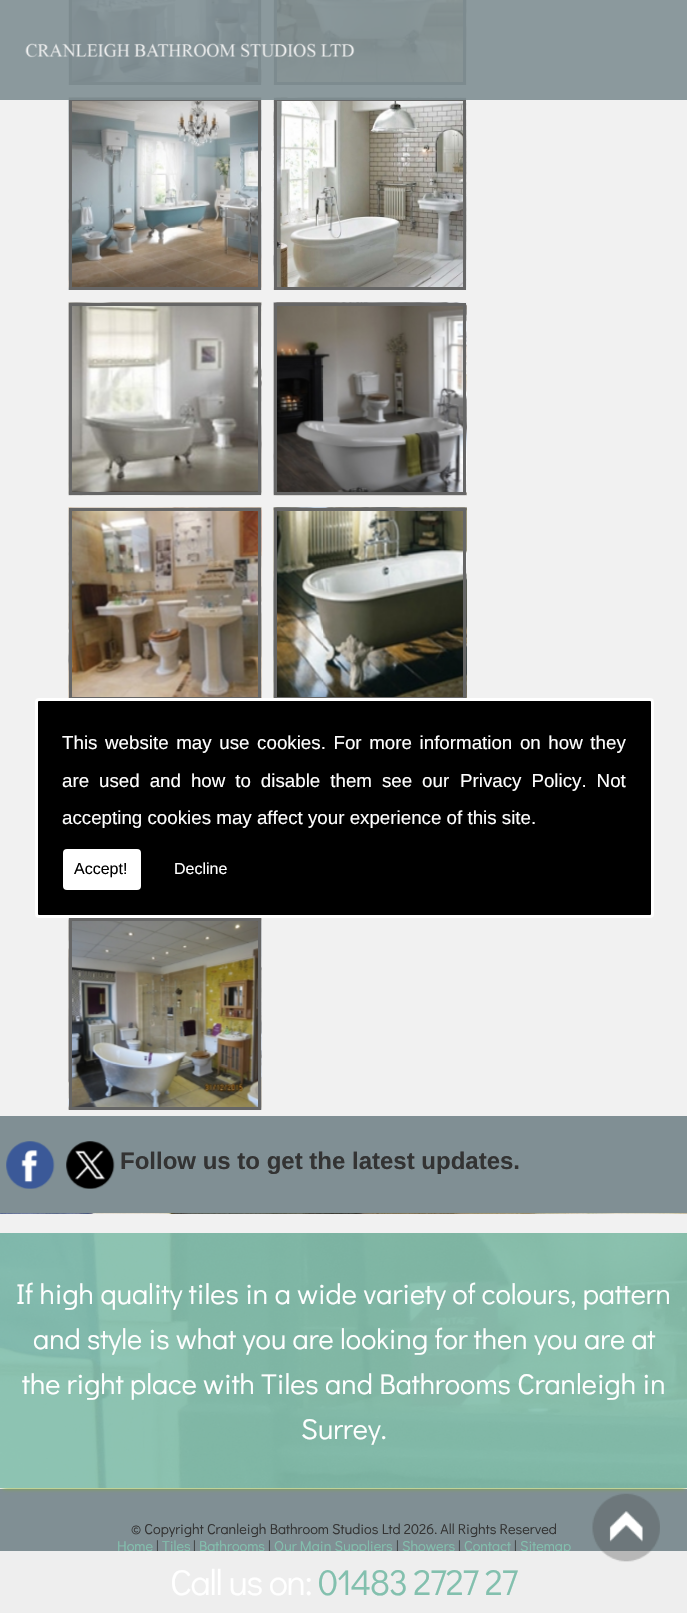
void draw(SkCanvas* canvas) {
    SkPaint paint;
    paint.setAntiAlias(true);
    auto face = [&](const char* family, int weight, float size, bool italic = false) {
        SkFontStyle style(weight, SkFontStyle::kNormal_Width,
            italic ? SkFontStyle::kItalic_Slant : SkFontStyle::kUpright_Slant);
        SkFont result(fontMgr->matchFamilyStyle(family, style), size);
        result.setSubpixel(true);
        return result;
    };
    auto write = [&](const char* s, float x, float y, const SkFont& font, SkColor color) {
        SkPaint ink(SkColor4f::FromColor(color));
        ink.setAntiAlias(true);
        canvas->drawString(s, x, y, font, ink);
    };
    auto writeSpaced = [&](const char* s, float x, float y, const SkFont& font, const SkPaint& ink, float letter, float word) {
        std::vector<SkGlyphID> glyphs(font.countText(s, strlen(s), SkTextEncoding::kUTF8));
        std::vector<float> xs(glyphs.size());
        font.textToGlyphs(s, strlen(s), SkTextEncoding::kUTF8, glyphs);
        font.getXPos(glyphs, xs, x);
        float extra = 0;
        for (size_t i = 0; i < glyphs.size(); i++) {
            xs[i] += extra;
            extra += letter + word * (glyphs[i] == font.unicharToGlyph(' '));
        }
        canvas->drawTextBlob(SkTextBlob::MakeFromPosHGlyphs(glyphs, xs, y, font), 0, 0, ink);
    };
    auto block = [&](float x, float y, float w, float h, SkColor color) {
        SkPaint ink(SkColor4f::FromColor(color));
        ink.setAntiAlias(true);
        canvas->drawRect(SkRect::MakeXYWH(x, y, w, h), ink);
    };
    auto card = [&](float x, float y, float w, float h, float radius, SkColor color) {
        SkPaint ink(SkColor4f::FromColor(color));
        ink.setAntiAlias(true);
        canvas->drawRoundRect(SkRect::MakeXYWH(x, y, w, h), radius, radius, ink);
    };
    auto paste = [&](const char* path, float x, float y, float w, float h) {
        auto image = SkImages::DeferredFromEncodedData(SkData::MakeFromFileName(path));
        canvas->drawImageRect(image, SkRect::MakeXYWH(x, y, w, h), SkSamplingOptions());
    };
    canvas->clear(SkColorSetRGB(128, 143, 148));
    block(0, 0, 687, 1116, SkColorSetRGB(241, 241, 241));
    paste("pic11.png", 68, 507, 194, 191);
    paint.setStyle(SkPaint::kStroke_Style);
    paint.setStrokeWidth(3);
    paint.setColor(SkColorSetRGB(102, 102, 102));
    canvas->drawRect(SkRect::MakeXYWH(70.5f, 509.5f, 189, 189), paint);
    paste("pic12.png", 273, 507, 194, 191);
    canvas->drawRect(SkRect::MakeXYWH(275.5f, 509.5f, 189, 189), paint);
    paint.setStyle(SkPaint::kFill_Style);
    paint.setColor(SK_ColorBLACK);
    canvas->drawRoundRect(SkRect::MakeXYWH(36.5f, 699.5f, 616, 217), 2.5f, 2.5f, paint);
    paint.setStyle(SkPaint::kStroke_Style);
    paint.setColor(SK_ColorWHITE);
    canvas->drawRoundRect(SkRect::MakeXYWH(36.5f, 699.5f, 616, 217), 2.5f, 2.5f, paint);
    auto kFont1 = face("Liberation Sans", 400, 18.75f);
    paint.setStyle(SkPaint::kFill_Style);
    writeSpaced("This website may use cookies. For more information on how they", 62, 749, kFont1, paint, 0, 2.4f);
    writeSpaced("are used and how to disable them see our", 62, 787, kFont1, paint, 0, 4.75f);
    writeSpaced("Privacy Policy. Not", 460, 787, kFont1, paint, 0, 4.75f);
    write("accepting cookies may affect your experience of this site.", 62, 824, kFont1, SK_ColorWHITE);
    card(63, 849, 78, 41, 4, SK_ColorWHITE);
    auto kFont2 = face("Liberation Sans", 400, 16);
    write("Accept!", 74, 874, kFont2, SK_ColorBLACK);
    write("Decline", 174, 874, kFont2, SK_ColorWHITE);
    paste("pic1.png", 6, 1141, 49, 48);
    paste("pic2.png", 66, 1141, 49, 48);
    auto kFont3 = face("Liberation Sans", 700, 24);
    write("Follow us to get the latest updates.", 120, 1169, kFont3, SkColorSetRGB(51, 51, 51));
    block(0, 1488, 687, 1, SkColorSetRGB(238, 238, 238));
    paint.setColor(SkColorSetRGB(132, 174, 36));
    paint.setMaskFilter(SkMaskFilter::MakeBlur(kNormal_SkBlurStyle, 2.5f));
    canvas->drawRect(SkRect::MakeXYWH(3, 1219, 682, 269), paint);
    paint.setMaskFilter(nullptr);
    paste("pic3.png", 0, 1213, 687, 275);
    block(0, 1214, 687, 19, SkColorSetRGB(241, 241, 241));
    auto kFont4 = face("Didact Gothic", 400, 28.75f);
    write("If high quality tiles in a wide variety of colours, pattern", 16, 1304, kFont4, SK_ColorWHITE);
    write("and style is what you are looking for then you are at", 33, 1349, kFont4, SK_ColorWHITE);
    write("the right place with Tiles and Bathrooms Cranleigh in", 22, 1394, kFont4, SK_ColorWHITE);
    write("Surrey.", 301, 1439, kFont4, SK_ColorWHITE);
    auto kFont5 = face("Didact Gothic", 400, 14.4f);
    write("© Copyright Cranleigh Bathroom Studios Ltd 2026. All Rights Reserved", 131, 1534, kFont5, SkColorSetRGB(51, 51, 51));
    write("Home", 117, 1551, kFont5, SkColorSetRGB(131, 192, 174));
    write("|", 156, 1551, kFont5, SkColorSetRGB(51, 51, 51));
    write("Tiles", 162, 1551, kFont5, SkColorSetRGB(131, 192, 174));
    write("|", 193, 1551, kFont5, SkColorSetRGB(51, 51, 51));
    write("Bathrooms", 199, 1551, kFont5, SkColorSetRGB(131, 192, 174));
    write("|", 268, 1551, kFont5, SkColorSetRGB(51, 51, 51));
    write("Our Main Suppliers", 274, 1551, kFont5, SkColorSetRGB(131, 192, 174));
    write("|", 396, 1551, kFont5, SkColorSetRGB(51, 51, 51));
    write("Showers", 402, 1551, kFont5, SkColorSetRGB(131, 192, 174));
    write("|", 458, 1551, kFont5, SkColorSetRGB(51, 51, 51));
    write("Contact", 464, 1551, kFont5, SkColorSetRGB(131, 192, 174));
    write("|", 514, 1551, kFont5, SkColorSetRGB(51, 51, 51));
    write("Sitemap", 520, 1551, kFont5, SkColorSetRGB(131, 192, 174));
    block(0, 1551, 687, 62, SkColorSetRGB(238, 238, 238));
    paste("pic4.png", 592, 1493, 68, 69);
    paste("pic5.png", 68, 0, 194, 85);
    paint.setStyle(SkPaint::kStroke_Style);
    paint.setColor(SkColorSetRGB(102, 102, 102));
    canvas->drawRect(SkRect::MakeXYWH(70.5f, -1.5f, 189, 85), paint);
    paste("pic6.png", 273, 0, 194, 85);
    canvas->drawRect(SkRect::MakeXYWH(275.5f, -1.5f, 189, 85), paint);
    paste("pic7.png", 68, 97, 194, 193);
    canvas->drawRect(SkRect::MakeXYWH(70.5f, 99.5f, 189, 189), paint);
    paste("pic8.png", 273, 97, 194, 193);
    canvas->drawRect(SkRect::MakeXYWH(275.5f, 99.5f, 189, 189), paint);
    paste("pic9.png", 68, 302, 194, 194);
    canvas->drawRect(SkRect::MakeXYWH(70.5f, 304.5f, 189, 189), paint);
    paste("pic10.png", 273, 302, 194, 194);
    canvas->drawRect(SkRect::MakeXYWH(275.5f, 304.5f, 189, 189), paint);
    paste("pic13.png", 68, 918, 194, 192);
    canvas->drawRect(SkRect::MakeXYWH(70.5f, 919.5f, 189, 189), paint);
    block(0, 0, 687, 100, SkColorSetARGB(230, 128, 143, 148));
    paste("pic14.png", 25, 43, 330, 15);
    auto kFont6 = face("Didact Gothic", 400, 36);
    paint.setStyle(SkPaint::kFill_Style);
    paint.setColor(SK_ColorWHITE);
    writeSpaced("Call us on:", 170, 1595, kFont6, paint, -1.25f, 0);
    paint.setColor(SkColorSetRGB(131, 192, 174));
    writeSpaced("01483 2727 27", 318, 1595, kFont6, paint, -1.25f, 0);
}
